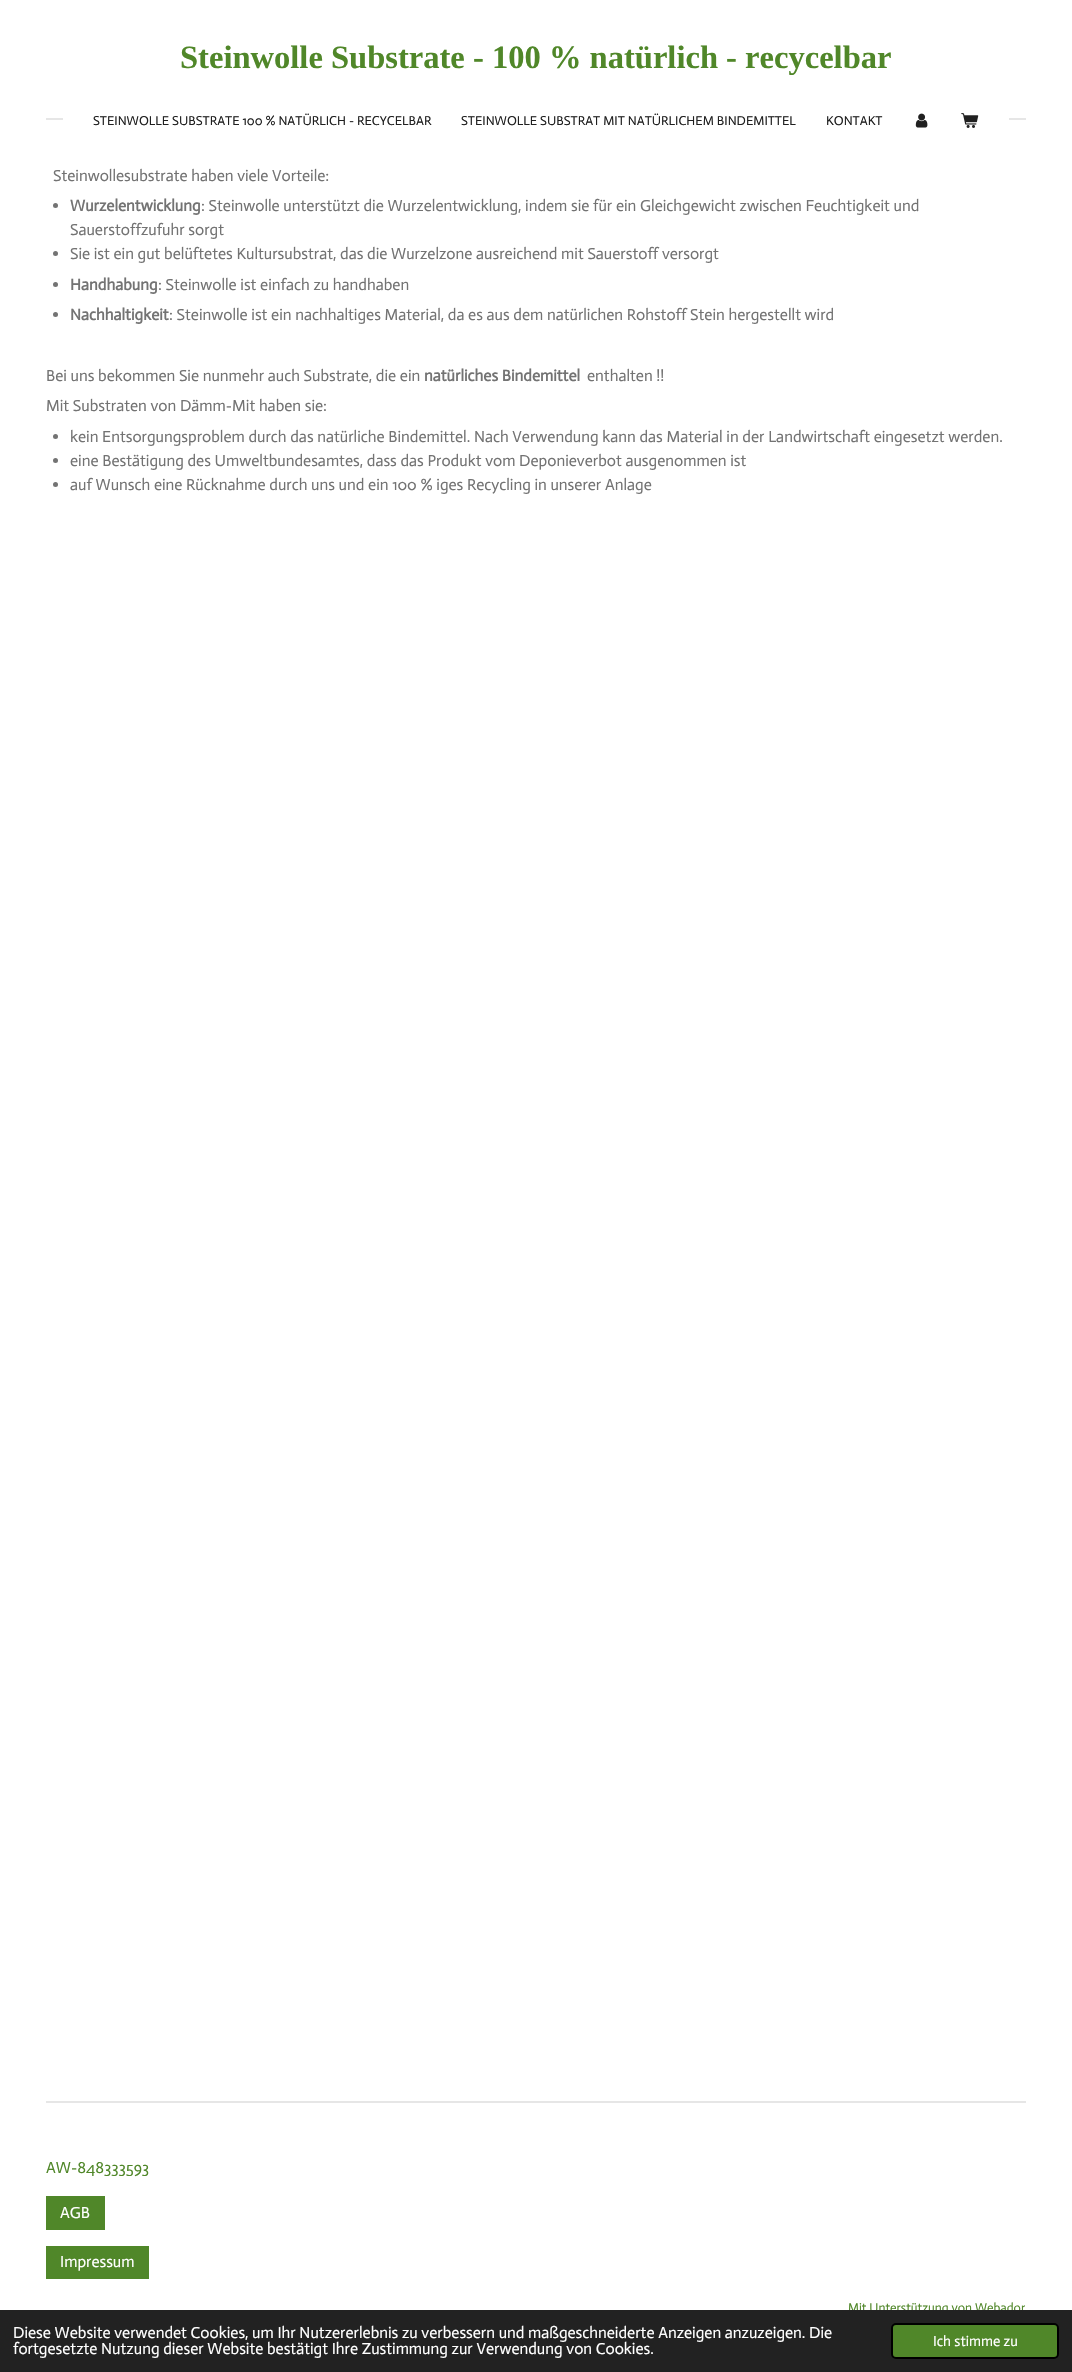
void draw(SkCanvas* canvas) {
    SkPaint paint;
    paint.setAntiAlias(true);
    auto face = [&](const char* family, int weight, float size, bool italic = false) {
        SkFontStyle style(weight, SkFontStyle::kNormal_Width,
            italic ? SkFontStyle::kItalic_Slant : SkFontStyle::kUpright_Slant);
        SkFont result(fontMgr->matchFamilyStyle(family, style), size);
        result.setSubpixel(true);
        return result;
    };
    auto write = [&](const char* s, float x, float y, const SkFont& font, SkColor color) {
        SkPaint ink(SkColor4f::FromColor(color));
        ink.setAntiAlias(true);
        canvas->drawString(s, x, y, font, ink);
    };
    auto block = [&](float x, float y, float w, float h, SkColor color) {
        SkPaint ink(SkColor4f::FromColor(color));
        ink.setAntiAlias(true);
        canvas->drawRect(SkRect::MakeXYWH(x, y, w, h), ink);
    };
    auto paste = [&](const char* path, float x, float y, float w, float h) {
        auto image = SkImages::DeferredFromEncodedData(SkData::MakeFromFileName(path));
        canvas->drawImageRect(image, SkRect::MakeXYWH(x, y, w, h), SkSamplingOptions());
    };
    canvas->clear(SK_ColorWHITE);
    auto kFont1 = face("Liberation Serif", 700, 32.55f);
    write("Steinwolle Substrate - 100 % natürlich - recycelbar", 180, 68, kFont1, SkColorSetRGB(80, 135, 41));
    block(46, 118, 17, 2, SkColorSetRGB(230, 230, 230));
    auto kFont2 = face("Actor", 400, 13);
    write("STEINWOLLE SUBSTRATE 100 % NATÜRLICH - RECYCELBAR", 93, 125, kFont2, SkColorSetRGB(32, 32, 32));
    write("STEINWOLLE SUBSTRAT MIT NATÜRLICHEM BINDEMITTEL", 461, 125, kFont2, SkColorSetRGB(32, 32, 32));
    write("KONTAKT", 826, 125, kFont2, SkColorSetRGB(32, 32, 32));
    paste("pic1.png", 915, 113, 13, 15);
    paste("pic2.png", 961, 113, 18, 15);
    block(1009, 118, 17, 2, SkColorSetRGB(230, 230, 230));
    auto kFont3 = face("Actor", 400, 16);
    write("Steinwollesubstrate haben viele Vorteile:", 53, 181, kFont3, SkColorSetRGB(115, 115, 115));
    paint.setColor(SkColorSetRGB(115, 115, 115));
    canvas->drawCircle(55.5f, 205.5f, 2.5f, paint);
    auto kFont4 = face("Actor", 700, 16);
    write("Wurzelentwicklung", 70, 211, kFont4, SkColorSetRGB(115, 115, 115));
    write(": Steinwolle unterstützt die Wurzelentwicklung, indem sie für ein Gleichgewicht zwischen Feuchtigkeit und", 201, 211, kFont3, SkColorSetRGB(115, 115, 115));
    write("Sauerstoffzufuhr sorgt", 70, 235, kFont3, SkColorSetRGB(115, 115, 115));
    canvas->drawCircle(55.5f, 253.5f, 2.5f, paint);
    write("Sie ist ein gut belüftetes Kultursubstrat, das die Wurzelzone ausreichend mit Sauerstoff versorgt", 70, 259, kFont3, SkColorSetRGB(115, 115, 115));
    canvas->drawCircle(55.5f, 284.5f, 2.5f, paint);
    write("Handhabung", 70, 290, kFont4, SkColorSetRGB(115, 115, 115));
    write(": Steinwolle ist einfach zu handhaben", 158, 290, kFont3, SkColorSetRGB(115, 115, 115));
    canvas->drawCircle(55.5f, 314.5f, 2.5f, paint);
    write("Nachhaltigkeit", 70, 320, kFont4, SkColorSetRGB(115, 115, 115));
    write(": Steinwolle ist ein nachhaltiges Material, da es aus dem natürlichen Rohstoff Stein hergestellt wird", 169, 320, kFont3, SkColorSetRGB(115, 115, 115));
    write("Bei uns bekommen Sie nunmehr auch Substrate, die ein", 46, 381, kFont3, SkColorSetRGB(115, 115, 115));
    write("natürliches Bindemittel", 424, 381, kFont4, SkColorSetRGB(115, 115, 115));
    write("enthalten !!", 587, 381, kFont3, SkColorSetRGB(115, 115, 115));
    write("Mit Substraten von Dämm-Mit haben sie:", 46, 411, kFont3, SkColorSetRGB(115, 115, 115));
    canvas->drawCircle(55.5f, 436.5f, 2.5f, paint);
    write("kein Entsorgungsproblem durch das natürliche Bindemittel. Nach Verwendung kann das Material in der Landwirtschaft eingesetzt werden.", 70, 442, kFont3, SkColorSetRGB(115, 115, 115));
    canvas->drawCircle(55.5f, 460.5f, 2.5f, paint);
    write("eine Bestätigung des Umweltbundesamtes, dass das Produkt vom Deponieverbot ausgenommen ist", 70, 466, kFont3, SkColorSetRGB(115, 115, 115));
    canvas->drawCircle(55.5f, 484.5f, 2.5f, paint);
    write("auf Wunsch eine Rücknahme durch uns und ein 100 % iges Recycling in unserer Anlage", 70, 490, kFont3, SkColorSetRGB(115, 115, 115));
    block(46, 2101, 980, 2, SkColorSetRGB(230, 230, 230));
    write("AW-848333593", 46, 2173, kFont3, SkColorSetRGB(80, 135, 41));
    block(46, 2196, 59, 34, SkColorSetRGB(80, 135, 41));
    write("AGB", 60, 2218, kFont3, SK_ColorWHITE);
    block(46, 2246, 103, 33, SkColorSetRGB(80, 135, 41));
    write("Impressum", 60, 2267, kFont3, SK_ColorWHITE);
    auto kFont5 = face("Actor", 400, 12.75f);
    write("Mit Unterstützung von Webador", 848, 2312, kFont5, SkColorSetRGB(80, 135, 41));
    block(0, 2310, 1072, 62, SkColorSetRGB(34, 34, 34));
    write("Diese Website verwendet Cookies, um Ihr Nutzererlebnis zu verbessern und maßgeschneiderte Anzeigen anzuzeigen. Die", 13, 2338, kFont3, SK_ColorWHITE);
    write("fortgesetzte Nutzung dieser Website bestätigt Ihre Zustimmung zur Verwendung von Cookies.", 13, 2354, kFont3, SK_ColorWHITE);
    paint.setColor(SkColorSetRGB(80, 135, 41));
    canvas->drawRoundRect(SkRect::MakeXYWH(892, 2324, 166, 34), 4, 4, paint);
    paint.setStyle(SkPaint::kStroke_Style);
    paint.setStrokeWidth(2);
    paint.setColor(SK_ColorBLACK);
    canvas->drawRoundRect(SkRect::MakeXYWH(892, 2324, 166, 34), 4, 4, paint);
    auto kFont6 = face("Actor", 400, 14.5f);
    write("Ich stimme zu", 933, 2346, kFont6, SK_ColorWHITE);
}
